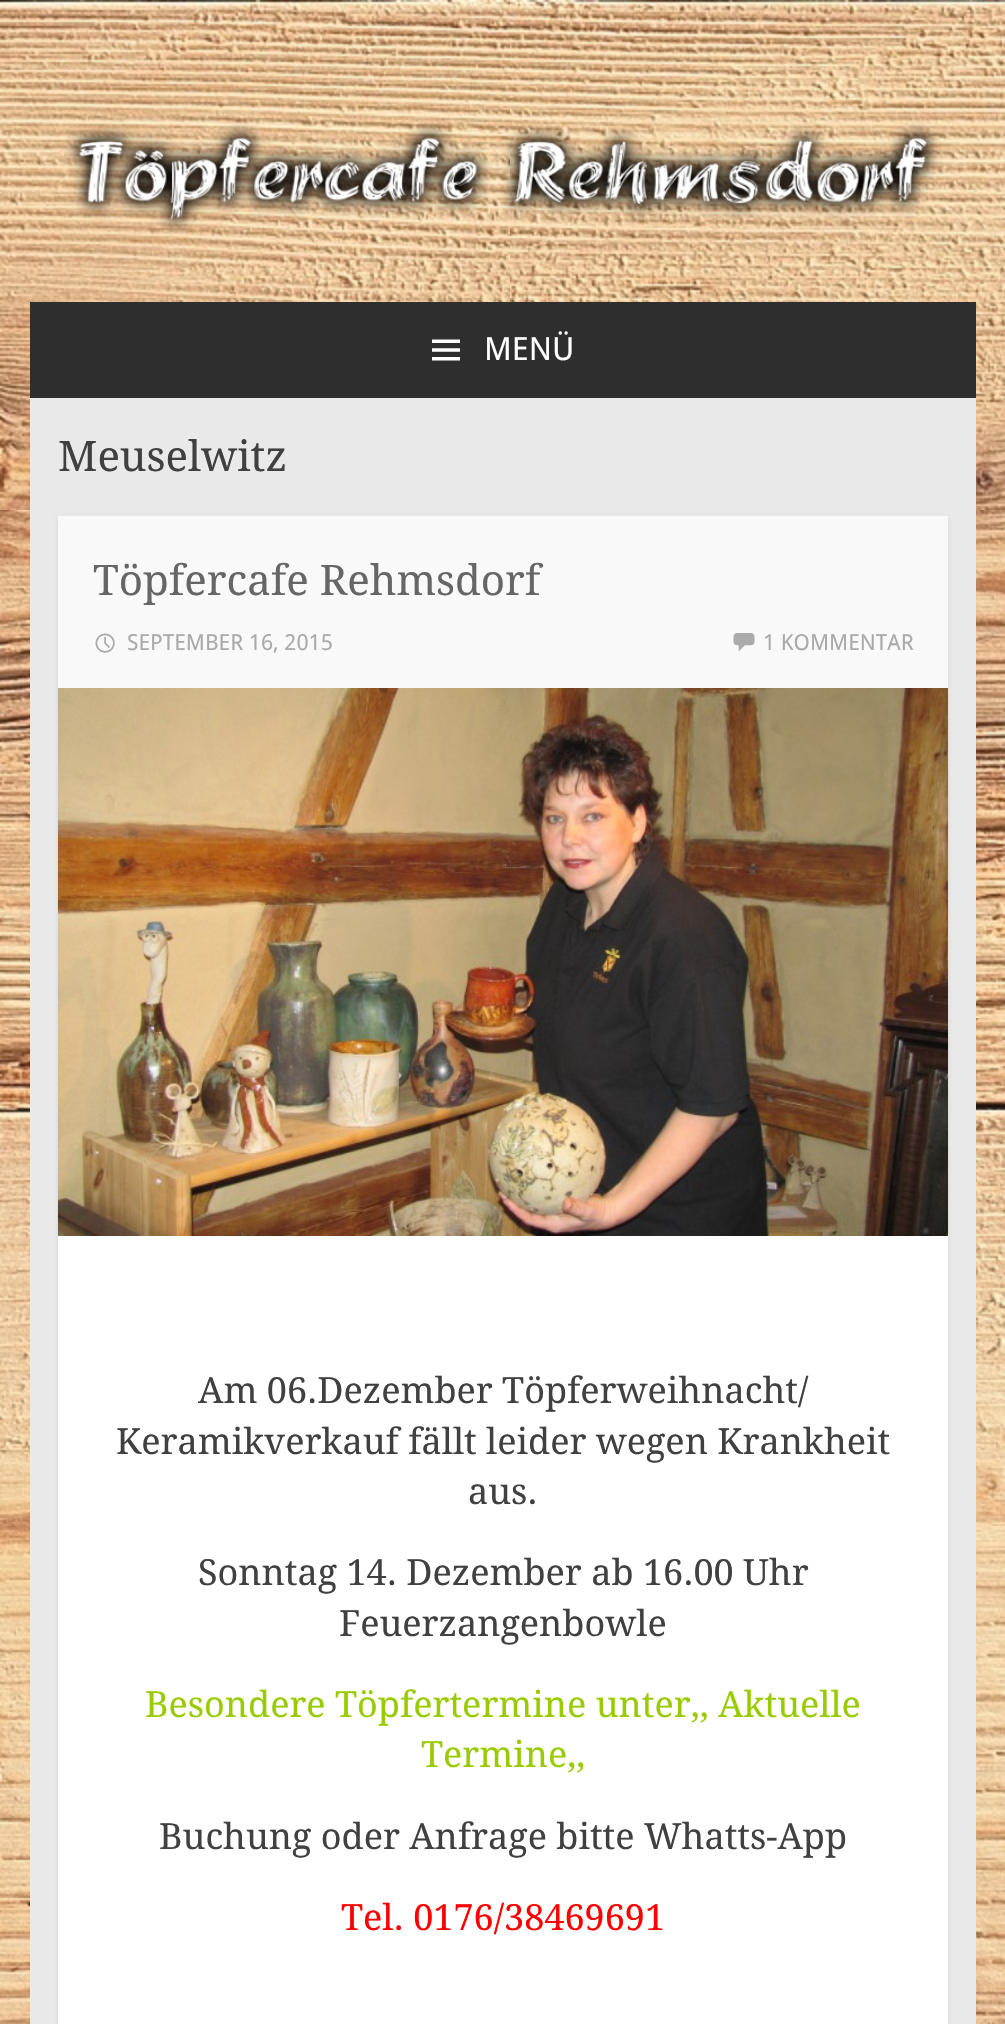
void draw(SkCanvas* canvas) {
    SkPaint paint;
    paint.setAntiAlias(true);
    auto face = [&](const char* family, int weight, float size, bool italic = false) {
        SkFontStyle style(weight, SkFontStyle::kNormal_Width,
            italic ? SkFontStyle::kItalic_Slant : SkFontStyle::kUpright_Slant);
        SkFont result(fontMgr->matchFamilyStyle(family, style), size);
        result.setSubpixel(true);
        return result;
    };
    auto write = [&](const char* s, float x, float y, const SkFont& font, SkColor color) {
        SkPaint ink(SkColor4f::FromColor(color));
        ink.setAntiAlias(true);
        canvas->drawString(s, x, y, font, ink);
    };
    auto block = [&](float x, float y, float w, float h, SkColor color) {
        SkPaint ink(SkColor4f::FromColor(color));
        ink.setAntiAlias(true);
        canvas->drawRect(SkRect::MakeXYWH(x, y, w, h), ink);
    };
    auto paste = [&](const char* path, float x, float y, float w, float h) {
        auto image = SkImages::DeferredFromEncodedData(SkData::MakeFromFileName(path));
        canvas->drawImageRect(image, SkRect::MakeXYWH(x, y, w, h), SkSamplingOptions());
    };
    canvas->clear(SK_ColorWHITE);
    paste("pic1.png", 0, 0, 1005, 2024);
    paste("pic2.png", 64, 122, 878, 112);
    block(30, 302, 946, 96, SkColorSetRGB(46, 46, 46));
    paste("pic3.png", 432, 339, 28, 22);
    auto kFont1 = face("Droid Sans", 400, 32);
    write("MENÜ", 484, 360, kFont1, SK_ColorWHITE);
    block(30, 398, 946, 1626, SkColorSetRGB(233, 233, 233));
    auto kFont2 = face("Droid Serif", 400, 42);
    write("Meuselwitz", 58, 471, kFont2, SkColorSetRGB(64, 64, 64));
    paint.setColor(SkColorSetARGB(26, 0, 0, 0));
    paint.setMaskFilter(SkMaskFilter::MakeBlur(kNormal_SkBlurStyle, 2));
    canvas->drawRect(SkRect::MakeXYWH(58, 518, 890, 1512), paint);
    paint.setMaskFilter(nullptr);
    block(58, 1236, 890, 788, SK_ColorWHITE);
    block(58, 516, 890, 172, SkColorSetRGB(249, 249, 249));
    write("Töpfercafe Rehmsdorf", 93, 595, kFont2, SkColorSetRGB(102, 102, 102));
    paste("pic4.png", 95, 633, 20, 20);
    auto kFont3 = face("Droid Sans", 400, 22);
    write("SEPTEMBER 16, 2015", 127, 650, kFont3, SkColorSetRGB(170, 170, 170));
    paste("pic5.png", 733, 633, 22, 19);
    write("1 KOMMENTAR", 763, 650, kFont3, SkColorSetRGB(170, 170, 170));
    paste("pic6.png", 58, 688, 890, 548);
    auto kFont4 = face("Droid Serif", 400, 36);
    write("Am 06.Dezember Töpferweihnacht/", 198, 1403, kFont4, SkColorSetRGB(64, 64, 64));
    write("Keramikverkauf fällt leider wegen Krankheit", 116, 1454, kFont4, SkColorSetRGB(64, 64, 64));
    write("aus.", 468, 1504, kFont4, SkColorSetRGB(64, 64, 64));
    write("Sonntag 14. Dezember ab 16.00 Uhr", 198, 1585, kFont4, SkColorSetRGB(64, 64, 64));
    write("Feuerzangenbowle", 339, 1636, kFont4, SkColorSetRGB(64, 64, 64));
    write("Besondere Töpfertermine unter,, Aktuelle", 145, 1717, kFont4, SkColorSetRGB(153, 204, 0));
    write("Termine,,", 421, 1767, kFont4, SkColorSetRGB(153, 204, 0));
    write("Buchung oder Anfrage bitte Whatts-App", 159, 1849, kFont4, SkColorSetRGB(64, 64, 64));
    write("Tel. 0176/38469691", 341, 1930, kFont4, SkColorSetRGB(255, 0, 0));
}
